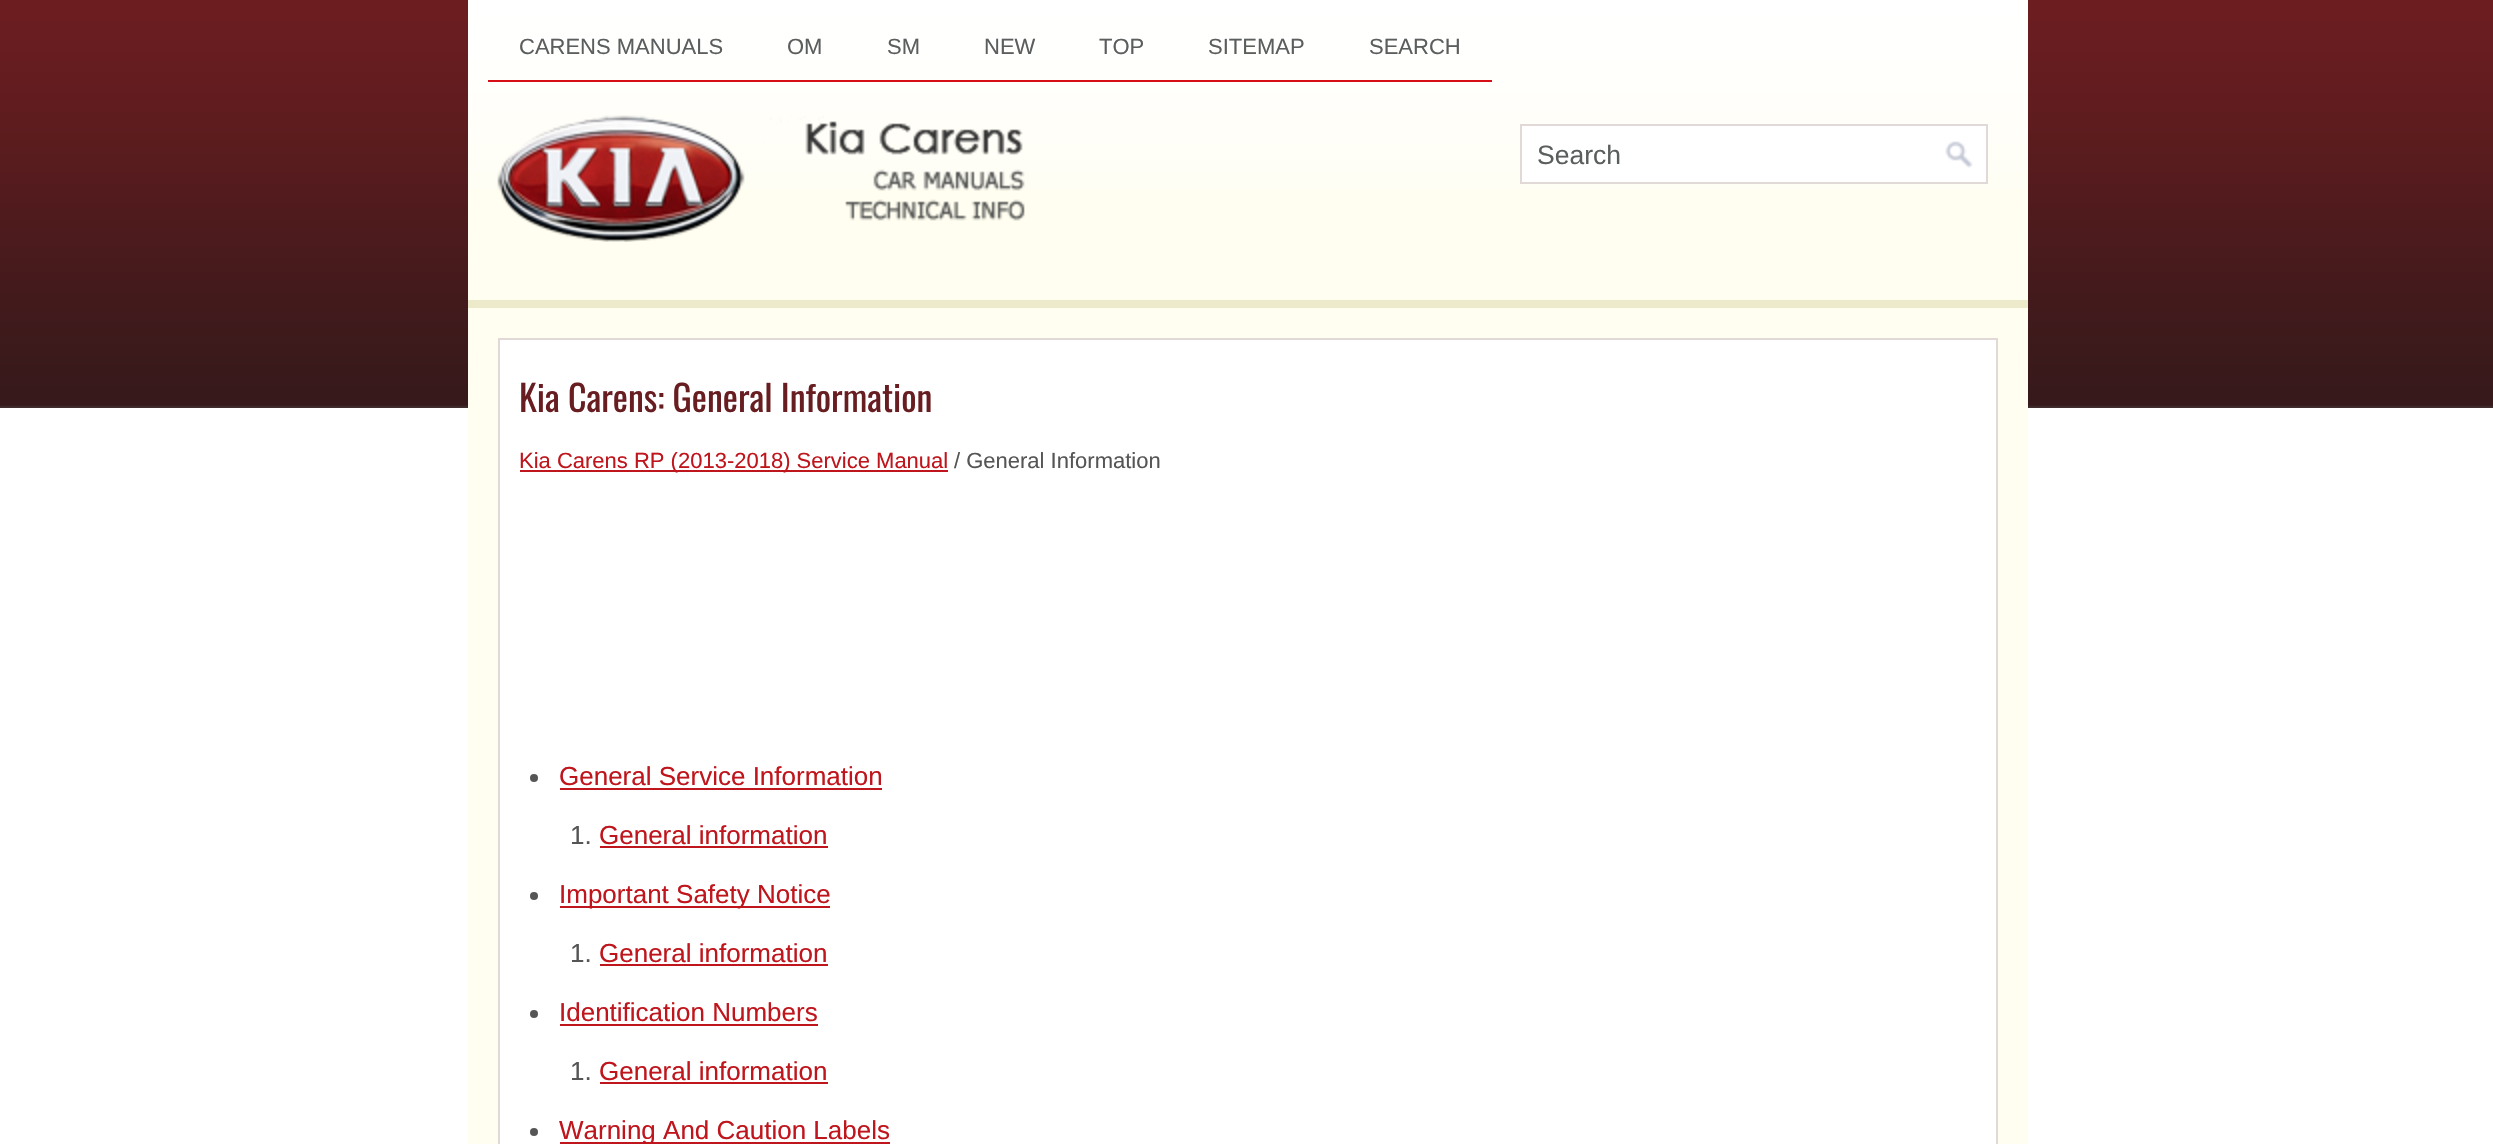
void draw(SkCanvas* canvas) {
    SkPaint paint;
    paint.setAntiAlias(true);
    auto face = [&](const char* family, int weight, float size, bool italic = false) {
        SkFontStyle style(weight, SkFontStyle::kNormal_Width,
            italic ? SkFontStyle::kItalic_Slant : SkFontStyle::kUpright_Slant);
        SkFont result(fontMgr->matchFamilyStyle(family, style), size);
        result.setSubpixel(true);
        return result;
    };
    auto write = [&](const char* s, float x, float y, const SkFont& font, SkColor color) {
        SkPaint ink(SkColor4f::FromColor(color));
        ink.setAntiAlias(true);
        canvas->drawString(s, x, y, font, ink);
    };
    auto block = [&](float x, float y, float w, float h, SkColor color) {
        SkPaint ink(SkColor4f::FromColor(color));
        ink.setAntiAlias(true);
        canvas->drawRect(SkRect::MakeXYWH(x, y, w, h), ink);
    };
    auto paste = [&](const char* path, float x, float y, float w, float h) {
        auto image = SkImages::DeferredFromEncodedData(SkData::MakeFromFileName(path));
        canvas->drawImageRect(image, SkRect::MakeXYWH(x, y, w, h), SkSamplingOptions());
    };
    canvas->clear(SK_ColorWHITE);
    paste("pic1.png", 0, 0, 2493, 408);
    block(468, 189, 1560, 955, SkColorSetRGB(255, 254, 240));
    paste("pic2.png", 468, 0, 1560, 189);
    block(468, 300, 1560, 8, SkColorSetRGB(237, 233, 203));
    block(488, 80, 1004, 2, SkColorSetRGB(214, 14, 22));
    auto kFont1 = face("Liberation Sans", 400, 22);
    write("CARENS MANUALS", 519, 54, kFont1, SkColorSetRGB(91, 94, 94));
    write("OM", 787, 54, kFont1, SkColorSetRGB(91, 94, 94));
    write("SM", 887, 54, kFont1, SkColorSetRGB(91, 94, 94));
    write("NEW", 984, 54, kFont1, SkColorSetRGB(91, 94, 94));
    write("TOP", 1099, 54, kFont1, SkColorSetRGB(91, 94, 94));
    write("SITEMAP", 1208, 54, kFont1, SkColorSetRGB(91, 94, 94));
    write("SEARCH", 1369, 54, kFont1, SkColorSetRGB(91, 94, 94));
    paste("pic3.png", 497, 115, 528, 127);
    paint.setColor(SK_ColorWHITE);
    canvas->drawRect(SkRect::MakeXYWH(1521, 125, 466, 58), paint);
    paint.setStyle(SkPaint::kStroke_Style);
    paint.setStrokeWidth(2);
    paint.setColor(SkColorSetRGB(225, 216, 216));
    canvas->drawRect(SkRect::MakeXYWH(1521, 125, 466, 58), paint);
    auto kFont2 = face("Liberation Sans", 400, 26.5f);
    write("Search", 1537, 164, kFont2, SkColorSetRGB(91, 94, 94));
    paste("pic4.png", 1945, 141, 28, 27);
    paint.setStyle(SkPaint::kFill_Style);
    paint.setColor(SK_ColorWHITE);
    canvas->drawRect(SkRect::MakeXYWH(499, 339, 1498, 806), paint);
    paint.setStyle(SkPaint::kStroke_Style);
    paint.setColor(SkColorSetRGB(225, 216, 216));
    canvas->drawRect(SkRect::MakeXYWH(499, 339, 1498, 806), paint);
    auto kFont3 = face("Oswald", 400, 36);
    write("Kia Carens: General Information", 519, 412, kFont3, SkColorSetRGB(104, 29, 33));
    block(520, 470, 428, 2, SkColorSetRGB(191, 21, 28));
    write("Kia Carens RP (2013-2018) Service Manual", 519, 468, kFont1, SkColorSetRGB(191, 21, 28));
    write("/ General Information", 954, 468, kFont1, SkColorSetRGB(85, 85, 85));
    paint.setStyle(SkPaint::kFill_Style);
    paint.setColor(SkColorSetRGB(85, 85, 85));
    canvas->drawCircle(534, 778, 4, paint);
    auto kFont4 = face("Liberation Sans", 400, 26);
    write("General Service Information", 559, 785, kFont4, SkColorSetRGB(191, 21, 28));
    block(560, 788, 322, 2, SkColorSetRGB(191, 21, 28));
    write("1.", 570, 844, kFont4, SkColorSetRGB(85, 85, 85));
    write("General information", 599, 844, kFont4, SkColorSetRGB(191, 21, 28));
    block(600, 846, 228, 2, SkColorSetRGB(191, 21, 28));
    canvas->drawCircle(534, 896, 4, paint);
    block(560, 906, 270, 2, SkColorSetRGB(191, 21, 28));
    write("Important Safety Notice", 559, 903, kFont4, SkColorSetRGB(191, 21, 28));
    write("1.", 570, 962, kFont4, SkColorSetRGB(85, 85, 85));
    write("General information", 599, 962, kFont4, SkColorSetRGB(191, 21, 28));
    block(600, 964, 228, 2, SkColorSetRGB(191, 21, 28));
    canvas->drawCircle(534, 1014, 4, paint);
    write("Identification Numbers", 559, 1021, kFont4, SkColorSetRGB(191, 21, 28));
    block(560, 1024, 258, 2, SkColorSetRGB(191, 21, 28));
    write("1.", 570, 1080, kFont4, SkColorSetRGB(85, 85, 85));
    write("General information", 599, 1080, kFont4, SkColorSetRGB(191, 21, 28));
    block(600, 1082, 228, 2, SkColorSetRGB(191, 21, 28));
    canvas->drawCircle(534, 1132, 4, paint);
    block(560, 1142, 330, 2, SkColorSetRGB(191, 21, 28));
    write("Warning And Caution Labels", 559, 1139, kFont4, SkColorSetRGB(191, 21, 28));
}
